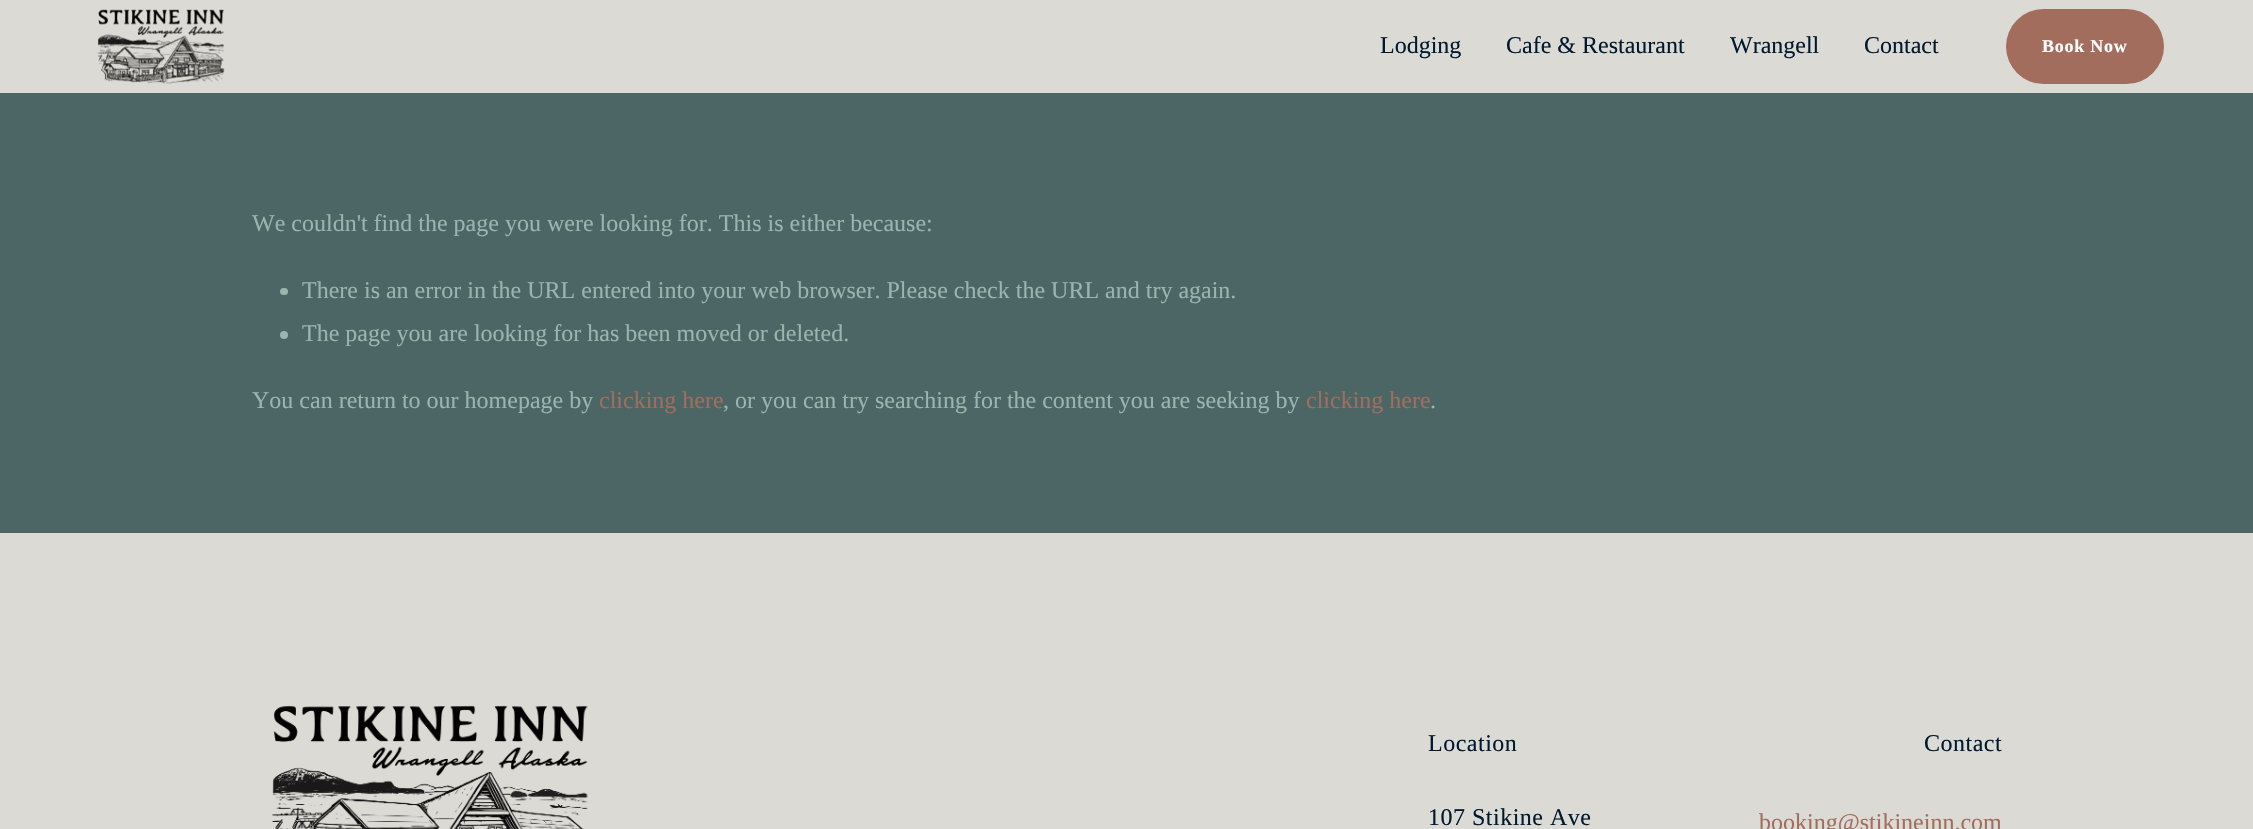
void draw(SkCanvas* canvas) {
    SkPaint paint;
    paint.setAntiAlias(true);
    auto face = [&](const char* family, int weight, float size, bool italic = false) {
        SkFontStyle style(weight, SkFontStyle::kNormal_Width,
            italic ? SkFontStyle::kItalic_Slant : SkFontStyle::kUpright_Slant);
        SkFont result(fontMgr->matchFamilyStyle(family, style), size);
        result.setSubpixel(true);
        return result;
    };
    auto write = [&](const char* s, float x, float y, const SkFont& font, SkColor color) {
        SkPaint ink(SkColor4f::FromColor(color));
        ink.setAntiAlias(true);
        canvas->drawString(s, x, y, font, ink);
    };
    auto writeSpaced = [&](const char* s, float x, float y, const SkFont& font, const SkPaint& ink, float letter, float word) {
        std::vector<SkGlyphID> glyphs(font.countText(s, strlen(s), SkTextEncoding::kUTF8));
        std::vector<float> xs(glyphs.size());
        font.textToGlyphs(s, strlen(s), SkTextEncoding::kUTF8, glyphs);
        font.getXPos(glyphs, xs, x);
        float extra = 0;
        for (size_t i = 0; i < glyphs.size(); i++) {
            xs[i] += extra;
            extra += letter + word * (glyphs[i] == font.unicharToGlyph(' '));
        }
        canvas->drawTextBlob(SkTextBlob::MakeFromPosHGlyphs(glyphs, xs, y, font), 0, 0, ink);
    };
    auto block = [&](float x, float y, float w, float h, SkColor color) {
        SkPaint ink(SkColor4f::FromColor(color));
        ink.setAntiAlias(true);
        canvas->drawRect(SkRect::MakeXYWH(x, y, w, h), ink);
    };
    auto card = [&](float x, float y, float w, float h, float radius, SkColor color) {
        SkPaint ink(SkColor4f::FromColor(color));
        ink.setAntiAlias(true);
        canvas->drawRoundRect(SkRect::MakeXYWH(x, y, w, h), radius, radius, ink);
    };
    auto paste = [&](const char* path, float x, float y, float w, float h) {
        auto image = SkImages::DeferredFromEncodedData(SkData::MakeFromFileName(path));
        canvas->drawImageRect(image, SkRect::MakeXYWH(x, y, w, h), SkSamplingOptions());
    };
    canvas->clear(SkColorSetRGB(76, 102, 101));
    block(0, 0, 2253, 93, SkColorSetRGB(219, 218, 213));
    paste("pic1.png", 97, 9, 128, 75);
    auto kFont1 = face("Liberation Serif", 400, 24);
    write("Lodging", 1380, 53, kFont1, SkColorSetRGB(0, 25, 47));
    write("Cafe & Restaurant", 1506, 53, kFont1, SkColorSetRGB(0, 25, 47));
    write("Wrangell", 1730, 53, kFont1, SkColorSetRGB(0, 25, 47));
    write("Contact", 1864, 53, kFont1, SkColorSetRGB(0, 25, 47));
    card(2006, 9, 158, 75, 37.5f, SkColorSetRGB(162, 109, 93));
    auto kFont2 = face("Liberation Serif", 700, 18);
    paint.setColor(SK_ColorWHITE);
    writeSpaced("Book Now", 2042, 52, kFont2, paint, 0.75f, 0);
    write("We couldn't find the page you were looking for. This is either because:", 252, 231, kFont1, SkColorSetRGB(154, 181, 173));
    card(280, 288, 8, 7, 3.5f, SkColorSetRGB(154, 181, 173));
    write("There is an error in the URL entered into your web browser. Please check the URL and try again.", 302, 298, kFont1, SkColorSetRGB(154, 181, 173));
    paint.setColor(SkColorSetRGB(154, 181, 173));
    canvas->drawCircle(284, 335, 4, paint);
    write("The page you are looking for has been moved or deleted.", 302, 341, kFont1, SkColorSetRGB(154, 181, 173));
    write("You can return to our homepage by", 252, 408, kFont1, SkColorSetRGB(154, 181, 173));
    write("clicking here", 599, 408, kFont1, SkColorSetRGB(162, 109, 93));
    write(", or you can try searching for the content you are seeking by", 723, 408, kFont1, SkColorSetRGB(154, 181, 173));
    write("clicking here", 1306, 408, kFont1, SkColorSetRGB(162, 109, 93));
    write(".", 1430, 408, kFont1, SkColorSetRGB(154, 181, 173));
    block(0, 533, 2253, 296, SkColorSetRGB(219, 218, 213));
    paste("pic2.png", 272, 705, 316, 124);
    paint.setColor(SkColorSetRGB(0, 25, 47));
    writeSpaced("Location", 1428, 751, kFont1, paint, 0.5f, 0);
    writeSpaced("107 Stikine Ave", 1428, 825, kFont1, paint, 0.5f, 0);
    writeSpaced("Contact", 1924, 751, kFont1, paint, 0.5f, 0);
    write("booking@stikineinn.com", 1759, 830, kFont1, SkColorSetRGB(162, 109, 93));
}
